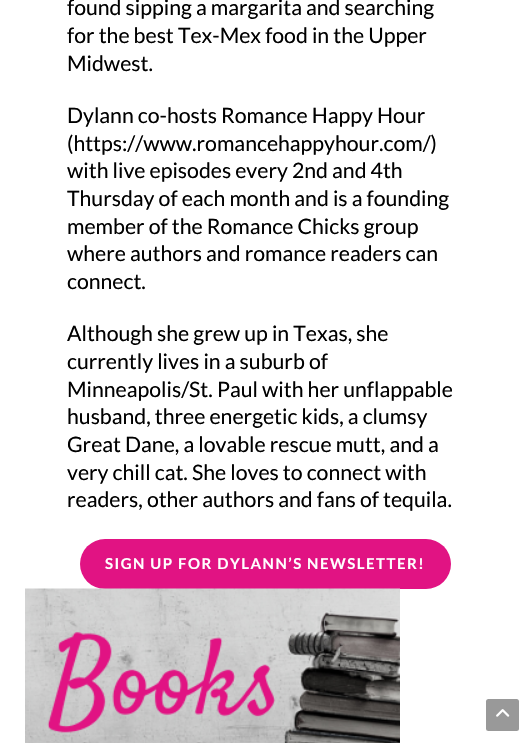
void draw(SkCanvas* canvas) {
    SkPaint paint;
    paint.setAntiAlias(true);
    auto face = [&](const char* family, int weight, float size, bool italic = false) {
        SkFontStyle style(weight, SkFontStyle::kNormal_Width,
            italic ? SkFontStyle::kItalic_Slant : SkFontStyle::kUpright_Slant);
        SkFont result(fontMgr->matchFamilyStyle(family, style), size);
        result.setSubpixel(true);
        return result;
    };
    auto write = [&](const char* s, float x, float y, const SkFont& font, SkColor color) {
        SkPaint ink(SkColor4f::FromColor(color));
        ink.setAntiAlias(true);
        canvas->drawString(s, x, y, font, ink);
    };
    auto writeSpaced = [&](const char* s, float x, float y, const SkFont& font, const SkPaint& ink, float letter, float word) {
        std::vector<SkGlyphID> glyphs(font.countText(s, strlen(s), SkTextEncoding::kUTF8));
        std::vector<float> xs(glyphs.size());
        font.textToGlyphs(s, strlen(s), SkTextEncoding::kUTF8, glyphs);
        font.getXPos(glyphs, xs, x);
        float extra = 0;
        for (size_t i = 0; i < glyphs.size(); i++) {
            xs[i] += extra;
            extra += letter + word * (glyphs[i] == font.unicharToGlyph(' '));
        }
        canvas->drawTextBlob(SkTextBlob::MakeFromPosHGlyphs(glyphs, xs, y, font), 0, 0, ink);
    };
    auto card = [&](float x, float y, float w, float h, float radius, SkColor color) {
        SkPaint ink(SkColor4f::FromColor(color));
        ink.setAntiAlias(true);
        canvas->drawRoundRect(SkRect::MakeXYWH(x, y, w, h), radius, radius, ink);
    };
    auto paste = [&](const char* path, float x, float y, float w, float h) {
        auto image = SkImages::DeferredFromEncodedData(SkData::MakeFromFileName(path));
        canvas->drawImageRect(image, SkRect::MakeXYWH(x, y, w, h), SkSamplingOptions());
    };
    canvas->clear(SK_ColorWHITE);
    auto kFont1 = face("Lato", 400, 21.25f);
    write("found sipping a margarita and searching", 67, 15, kFont1, SK_ColorBLACK);
    write("for the best Tex-Mex food in the Upper", 67, 43, kFont1, SK_ColorBLACK);
    write("Midwest.", 67, 71, kFont1, SK_ColorBLACK);
    write("Dylann co-hosts Romance Happy Hour", 67, 123, kFont1, SK_ColorBLACK);
    write("(https://www.romancehappyhour.com/)", 67, 151, kFont1, SK_ColorBLACK);
    write("with live episodes every 2nd and 4th", 67, 178, kFont1, SK_ColorBLACK);
    write("Thursday of each month and is a founding", 67, 206, kFont1, SK_ColorBLACK);
    write("member of the Romance Chicks group", 67, 234, kFont1, SK_ColorBLACK);
    write("where authors and romance readers can", 67, 261, kFont1, SK_ColorBLACK);
    write("connect.", 67, 289, kFont1, SK_ColorBLACK);
    write("Although she grew up in Texas, she", 67, 341, kFont1, SK_ColorBLACK);
    write("currently lives in a suburb of", 67, 369, kFont1, SK_ColorBLACK);
    write("Minneapolis/St. Paul with her unflappable", 67, 397, kFont1, SK_ColorBLACK);
    write("husband, three energetic kids, a clumsy", 67, 424, kFont1, SK_ColorBLACK);
    write("Great Dane, a lovable rescue mutt, and a", 67, 452, kFont1, SK_ColorBLACK);
    write("very chill cat. She loves to connect with", 67, 480, kFont1, SK_ColorBLACK);
    write("readers, other authors and fans of tequila.", 67, 507, kFont1, SK_ColorBLACK);
    card(80, 539, 371, 50, 25, SkColorSetRGB(225, 19, 131));
    auto kFont2 = face("Lato", 700, 15);
    paint.setColor(SK_ColorWHITE);
    writeSpaced("SIGN UP FOR DYLANN’S NEWSLETTER!", 105, 569, kFont2, paint, 1.5f, 0);
    paste("pic1.png", 25, 588, 375, 155);
    card(486, 699, 33, 32, 2.5f, SkColorSetRGB(153, 153, 153));
    paste("pic2.png", 496, 709, 14, 8);
}
